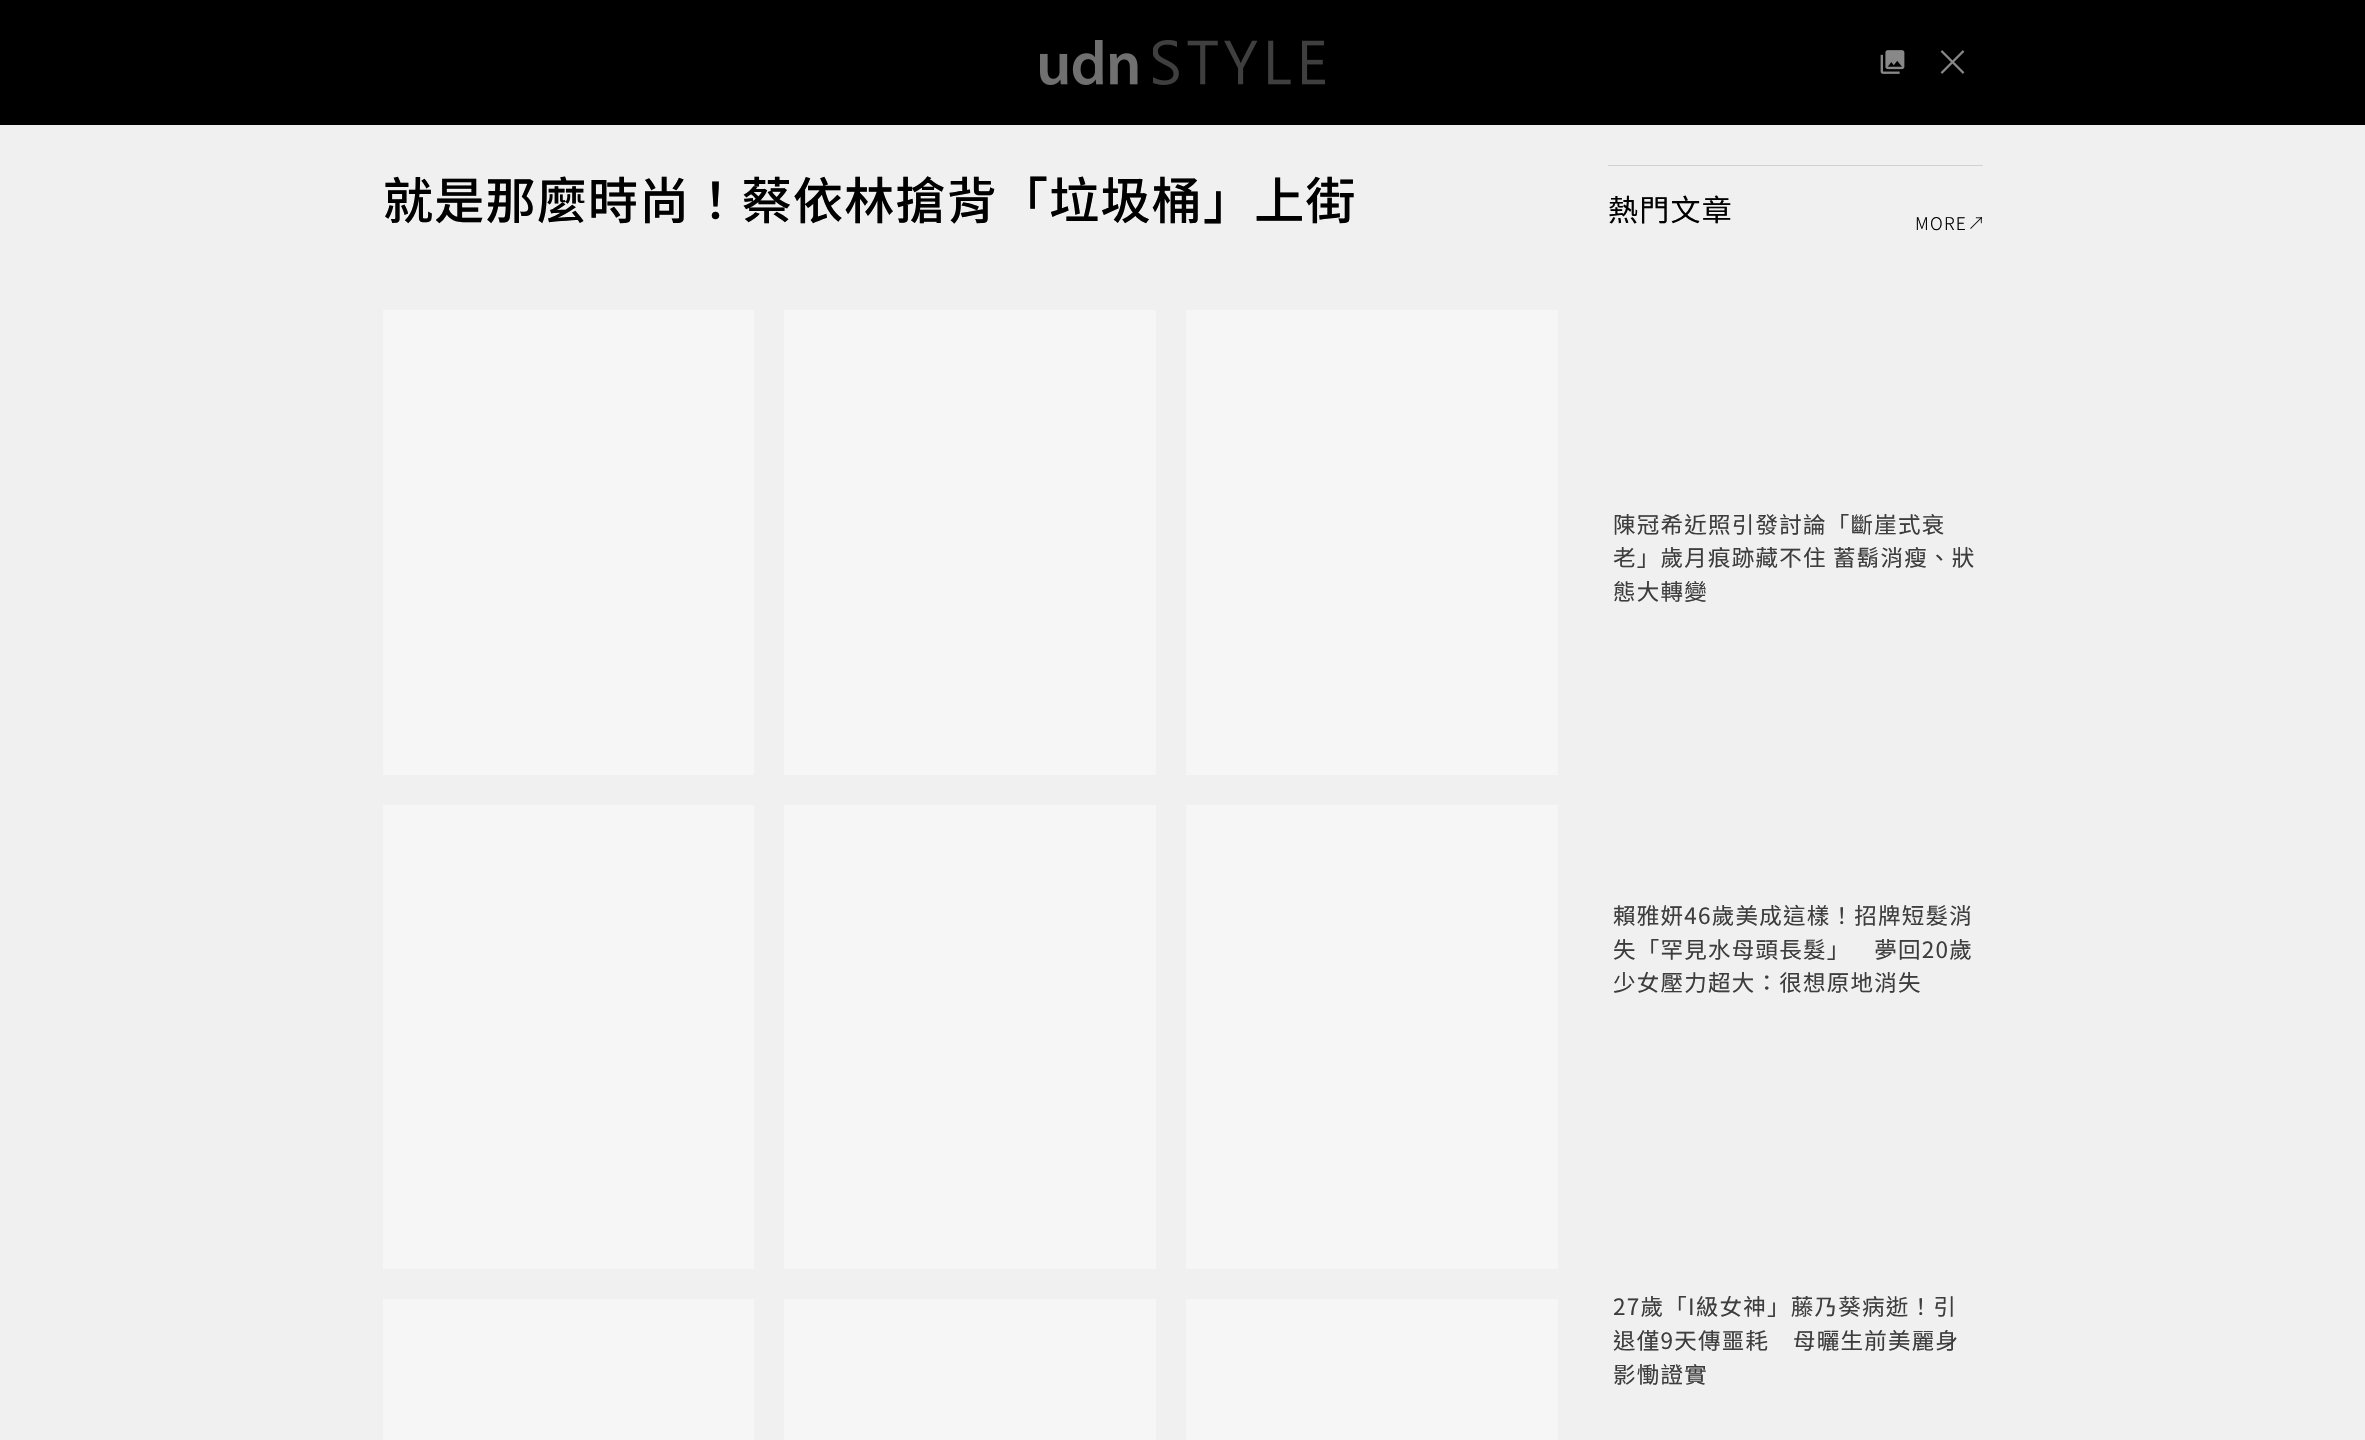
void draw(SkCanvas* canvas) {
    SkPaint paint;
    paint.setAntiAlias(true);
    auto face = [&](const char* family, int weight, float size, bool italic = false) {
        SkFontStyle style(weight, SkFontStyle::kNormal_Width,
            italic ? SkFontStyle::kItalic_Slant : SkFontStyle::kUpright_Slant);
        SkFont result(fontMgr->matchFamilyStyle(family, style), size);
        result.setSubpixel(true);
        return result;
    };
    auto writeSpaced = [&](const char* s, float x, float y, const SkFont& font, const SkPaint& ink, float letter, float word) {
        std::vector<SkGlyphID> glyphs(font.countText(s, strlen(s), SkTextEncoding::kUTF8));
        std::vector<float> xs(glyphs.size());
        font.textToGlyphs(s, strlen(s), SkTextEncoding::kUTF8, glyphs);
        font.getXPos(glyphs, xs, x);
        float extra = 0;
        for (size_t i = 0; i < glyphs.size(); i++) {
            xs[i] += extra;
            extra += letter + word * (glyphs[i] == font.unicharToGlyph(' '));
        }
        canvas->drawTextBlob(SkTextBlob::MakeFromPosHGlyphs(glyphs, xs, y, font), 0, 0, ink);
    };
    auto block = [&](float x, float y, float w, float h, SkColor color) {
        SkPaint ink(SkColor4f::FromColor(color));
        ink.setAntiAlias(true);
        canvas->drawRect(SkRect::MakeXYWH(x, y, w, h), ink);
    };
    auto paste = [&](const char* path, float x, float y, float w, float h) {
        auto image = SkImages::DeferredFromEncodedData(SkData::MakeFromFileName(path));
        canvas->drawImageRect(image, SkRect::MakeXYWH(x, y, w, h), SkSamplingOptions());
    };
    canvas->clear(SkColorSetRGB(240, 240, 240));
    block(0, 0, 2365, 125, SK_ColorBLACK);
    paste("pic1.png", 1040, 40, 98, 45);
    paste("pic2.png", 1153, 40, 172, 45);
    paste("pic3.png", 1880, 50, 25, 24);
    paste("pic4.png", 1940, 50, 25, 24);
    auto kFont1 = face("Noto Sans TC", 500, 50);
    paint.setColor(SK_ColorBLACK);
    writeSpaced("就是那麼時尚！蔡依林搶背「垃圾桶」上街", 383, 219, kFont1, paint, 1.25f, 0);
    block(383, 310, 371, 465, SkColorSetRGB(246, 246, 246));
    block(784, 310, 372, 465, SkColorSetRGB(246, 246, 246));
    block(1186, 310, 372, 465, SkColorSetRGB(246, 246, 246));
    block(383, 805, 371, 464, SkColorSetRGB(246, 246, 246));
    block(784, 805, 372, 464, SkColorSetRGB(246, 246, 246));
    block(1186, 805, 372, 464, SkColorSetRGB(246, 246, 246));
    block(383, 1299, 371, 141, SkColorSetRGB(246, 246, 246));
    block(784, 1299, 372, 141, SkColorSetRGB(246, 246, 246));
    block(1186, 1299, 372, 141, SkColorSetRGB(246, 246, 246));
    block(1608, 165, 375, 1, SkColorSetRGB(209, 209, 209));
    auto kFont2 = face("Noto Sans TC", 400, 30);
    writeSpaced("熱門文章", 1608, 221, kFont2, paint, 1.25f, 0);
    auto kFont3 = face("Noto Sans TC", 300, 17.5f);
    writeSpaced("MORE", 1915, 230, kFont3, paint, 1.25f, 0);
    paste("pic5.png", 1970, 217, 13, 12);
    auto kFont4 = face("Noto Sans TC", 400, 22.5f);
    paint.setColor(SkColorSetRGB(61, 61, 61));
    writeSpaced("陳冠希近照引發討論「斷崖式衰", 1613, 533, kFont4, paint, 1.25f, 0);
    writeSpaced("老」歲月痕跡藏不住 蓄鬍消瘦、狀", 1613, 566, kFont4, paint, 1.25f, 0);
    writeSpaced("態大轉變", 1613, 600, kFont4, paint, 1.25f, 0);
    writeSpaced("賴雅妍46歲美成這樣！招牌短髮消", 1613, 924, kFont4, paint, 1.25f, 0);
    writeSpaced("失「罕見水母頭長髮」　夢回20歲", 1613, 958, kFont4, paint, 1.25f, 0);
    writeSpaced("少女壓力超大：很想原地消失", 1613, 991, kFont4, paint, 1.25f, 0);
    writeSpaced("27歲「I級女神」藤乃葵病逝！引", 1613, 1315, kFont4, paint, 1.25f, 0);
    writeSpaced("退僅9天傳噩耗　母曬生前美麗身", 1613, 1349, kFont4, paint, 1.25f, 0);
    writeSpaced("影慟證實", 1613, 1383, kFont4, paint, 1.25f, 0);
}
